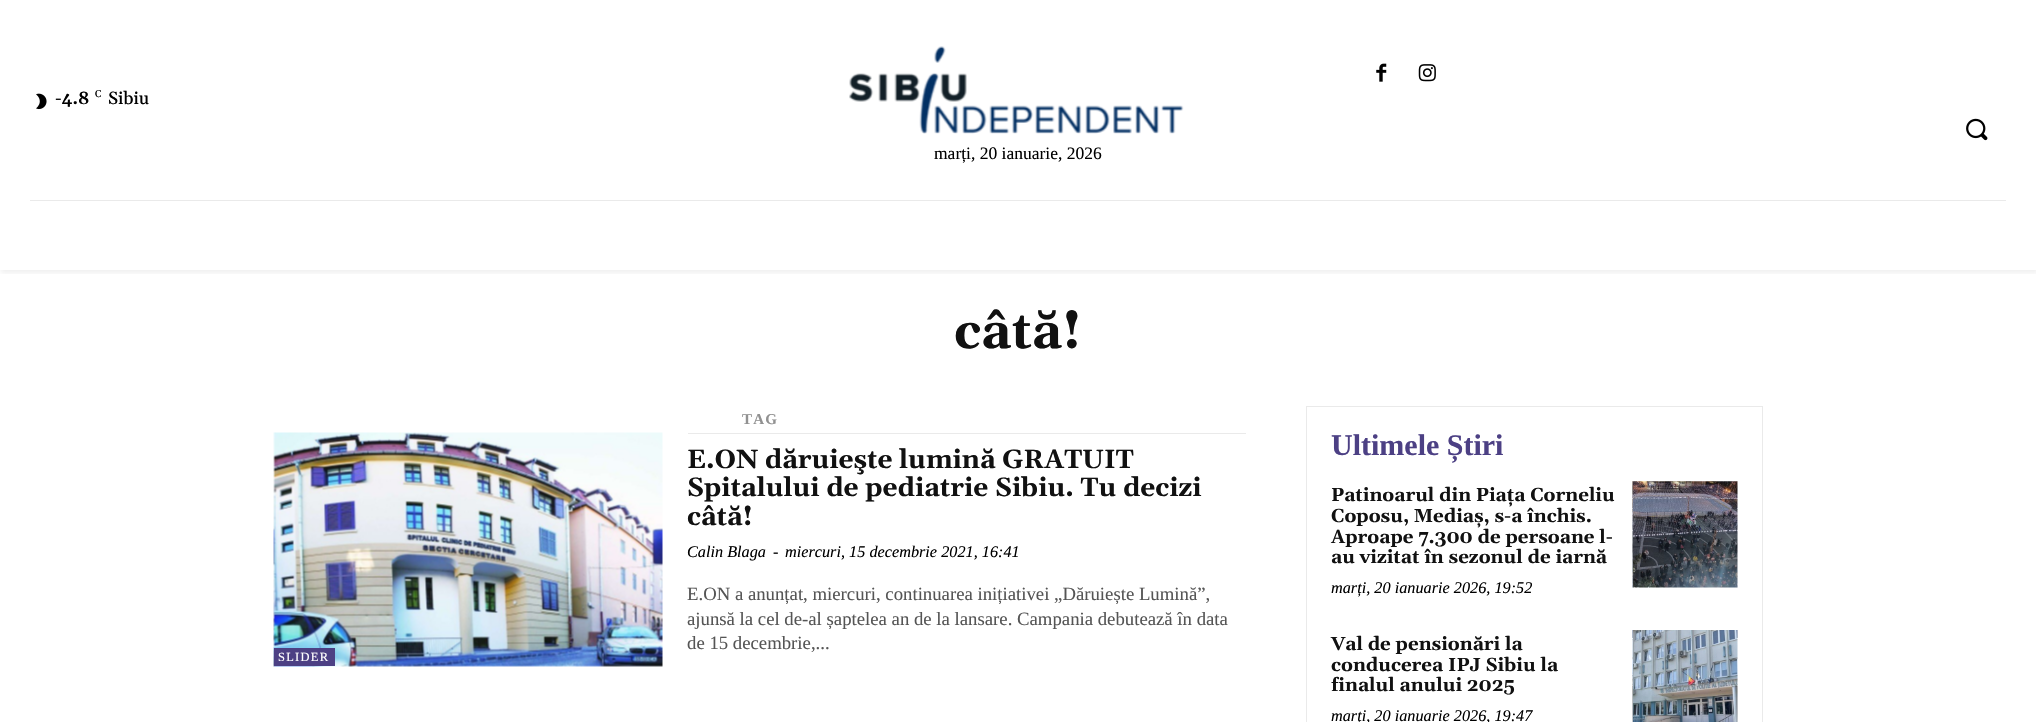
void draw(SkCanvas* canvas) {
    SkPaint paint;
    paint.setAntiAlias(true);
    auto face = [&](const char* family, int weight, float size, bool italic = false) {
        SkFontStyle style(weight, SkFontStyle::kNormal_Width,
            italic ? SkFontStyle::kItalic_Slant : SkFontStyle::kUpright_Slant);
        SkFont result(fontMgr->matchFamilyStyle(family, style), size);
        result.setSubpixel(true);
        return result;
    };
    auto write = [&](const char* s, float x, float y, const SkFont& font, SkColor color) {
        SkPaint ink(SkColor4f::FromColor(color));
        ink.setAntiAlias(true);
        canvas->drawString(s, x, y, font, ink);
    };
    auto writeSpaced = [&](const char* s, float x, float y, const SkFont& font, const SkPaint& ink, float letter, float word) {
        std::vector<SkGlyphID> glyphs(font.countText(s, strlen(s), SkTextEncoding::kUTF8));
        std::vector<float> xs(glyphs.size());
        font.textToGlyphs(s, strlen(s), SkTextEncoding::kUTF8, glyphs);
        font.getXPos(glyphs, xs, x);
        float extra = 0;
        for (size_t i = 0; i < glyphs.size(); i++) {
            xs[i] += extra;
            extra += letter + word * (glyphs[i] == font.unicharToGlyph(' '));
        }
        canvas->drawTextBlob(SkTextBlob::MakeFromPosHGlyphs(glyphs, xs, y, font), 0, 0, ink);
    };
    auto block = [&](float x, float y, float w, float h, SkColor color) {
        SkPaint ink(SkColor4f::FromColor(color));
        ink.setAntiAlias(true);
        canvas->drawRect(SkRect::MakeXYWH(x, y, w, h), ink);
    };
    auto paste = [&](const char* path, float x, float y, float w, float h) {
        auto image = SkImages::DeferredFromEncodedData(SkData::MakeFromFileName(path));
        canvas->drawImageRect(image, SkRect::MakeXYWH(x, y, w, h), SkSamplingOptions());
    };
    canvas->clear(SK_ColorWHITE);
    paste("pic1.png", 36, 93, 11, 17);
    auto kFont1 = face("Gelasio", 600, 17.5f);
    write("-4.8", 55, 104, kFont1, SK_ColorBLACK);
    auto kFont2 = face("Gelasio", 400, 10);
    write("C", 95, 97, kFont2, SK_ColorBLACK);
    auto kFont3 = face("Gelasio", 500, 17.5f);
    write("Sibiu", 108, 104, kFont3, SK_ColorBLACK);
    paste("pic2.png", 1376, 63, 11, 19);
    paste("pic3.png", 1418, 64, 18, 18);
    paste("pic4.png", 1966, 118, 22, 23);
    paste("pic5.png", 849, 46, 335, 88);
    auto kFont4 = face("Liberation Serif", 400, 17.5f);
    write("marți, 20 ianuarie, 2026", 934, 159, kFont4, SK_ColorBLACK);
    block(30, 200, 1976, 1, SkColorSetRGB(234, 234, 234));
    canvas->save();
    canvas->clipRect(SkRect::MakeXYWH(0, 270, 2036, 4));
    paint.setColor(SkColorSetARGB(15, 0, 0, 0));
    paint.setMaskFilter(SkMaskFilter::MakeBlur(kNormal_SkBlurStyle, 2.5f));
    canvas->drawRect(SkRect::MakeXYWH(1, 165, 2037, 108), paint);
    paint.setMaskFilter(nullptr);
    canvas->restore();
    auto kFont5 = face("Gelasio", 700, 51);
    write("câtă!", 954, 348, kFont5, SkColorSetRGB(17, 17, 17));
    auto kFont6 = face("Liberation Serif", 700, 15);
    paint.setColor(SkColorSetRGB(145, 145, 145));
    writeSpaced("TAG", 742, 424, kFont6, paint, 1.25f, 0);
    block(688, 433, 558, 1, SkColorSetRGB(234, 234, 234));
    auto kFont7 = face("Gelasio", 700, 26.25f);
    write("E.ON dăruieşte lumină GRATUIT", 687, 468, kFont7, SkColorSetRGB(17, 17, 17));
    write("Spitalului de pediatrie Sibiu. Tu decizi", 687, 496, kFont7, SkColorSetRGB(17, 17, 17));
    write("câtă!", 687, 525, kFont7, SkColorSetRGB(17, 17, 17));
    auto kFont8 = face("Liberation Serif", 400, 16.25f, true);
    write("Calin Blaga", 687, 557, kFont8, SK_ColorBLACK);
    write("-", 773, 557, kFont8, SK_ColorBLACK);
    write("miercuri, 15 decembrie 2021, 16:41", 785, 557, kFont8, SK_ColorBLACK);
    auto kFont9 = face("Liberation Serif", 400, 18.75f);
    write("E.ON a anunțat, miercuri, continuarea inițiativei „Dăruiește Lumină”,", 687, 600, kFont9, SkColorSetRGB(85, 85, 85));
    write("ajunsă la cel de-al șaptelea an de la lansare. Campania debutează în data", 687, 625, kFont9, SkColorSetRGB(85, 85, 85));
    write("de 15 decembrie,...", 687, 649, kFont9, SkColorSetRGB(85, 85, 85));
    paste("pic6.png", 273, 432, 390, 235);
    block(274, 648, 61, 18, SkColorSetRGB(76, 64, 132));
    auto kFont10 = face("Liberation Serif", 400, 12.5f);
    paint.setColor(SK_ColorWHITE);
    writeSpaced("SLIDER", 278, 661, kFont10, paint, 1.25f, 0);
    paint.setStyle(SkPaint::kStroke_Style);
    paint.setStrokeWidth(1);
    paint.setColor(SkColorSetRGB(234, 234, 234));
    canvas->drawRect(SkRect::MakeXYWH(1306.5f, 406.5f, 456, 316), paint);
    auto kFont11 = face("Liberation Serif", 700, 30);
    write("Ultimele Știri", 1331, 455, kFont11, SkColorSetRGB(76, 64, 132));
    auto kFont12 = face("Gelasio", 700, 18.75f);
    write("Patinoarul din Piața Corneliu", 1331, 501, kFont12, SkColorSetRGB(17, 17, 17));
    write("Coposu, Mediaș, s-a închis.", 1331, 522, kFont12, SkColorSetRGB(17, 17, 17));
    write("Aproape 7.300 de persoane l-", 1331, 543, kFont12, SkColorSetRGB(17, 17, 17));
    write("au vizitat în sezonul de iarnă", 1331, 563, kFont12, SkColorSetRGB(17, 17, 17));
    write("marți, 20 ianuarie 2026, 19:52", 1331, 593, kFont8, SK_ColorBLACK);
    paste("pic7.png", 1632, 481, 106, 107);
    write("Val de pensionări la", 1331, 650, kFont12, SkColorSetRGB(17, 17, 17));
    write("conducerea IPJ Sibiu la", 1331, 671, kFont12, SkColorSetRGB(17, 17, 17));
    write("finalul anului 2025", 1331, 691, kFont12, SkColorSetRGB(17, 17, 17));
    write("marți, 20 ianuarie 2026, 19:47", 1331, 721, kFont8, SK_ColorBLACK);
    paste("pic8.png", 1632, 630, 106, 92);
}
